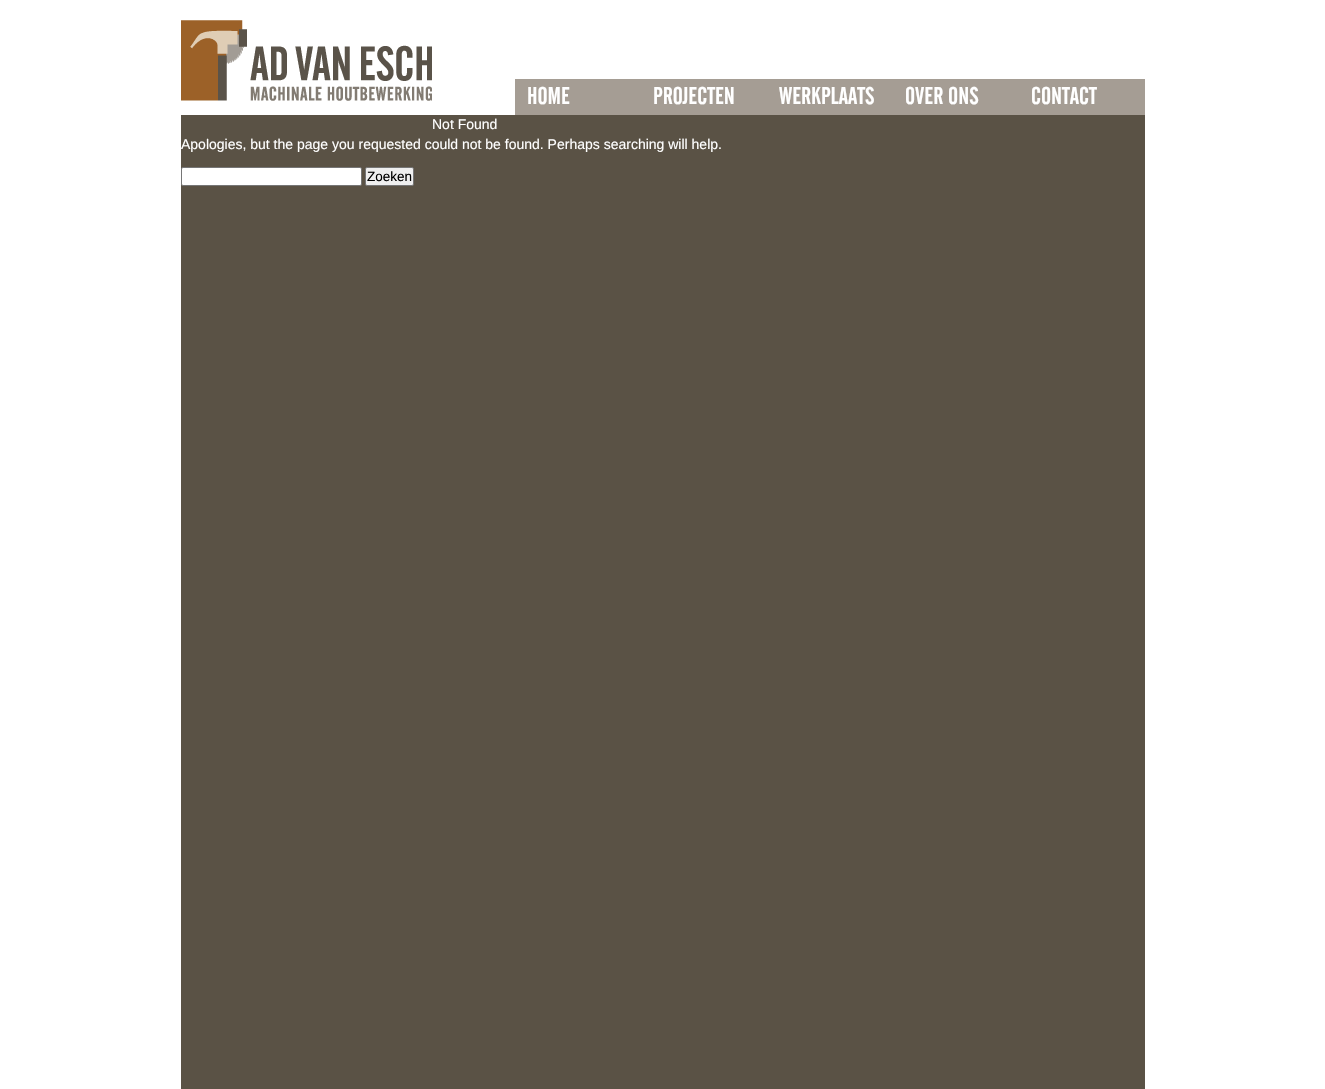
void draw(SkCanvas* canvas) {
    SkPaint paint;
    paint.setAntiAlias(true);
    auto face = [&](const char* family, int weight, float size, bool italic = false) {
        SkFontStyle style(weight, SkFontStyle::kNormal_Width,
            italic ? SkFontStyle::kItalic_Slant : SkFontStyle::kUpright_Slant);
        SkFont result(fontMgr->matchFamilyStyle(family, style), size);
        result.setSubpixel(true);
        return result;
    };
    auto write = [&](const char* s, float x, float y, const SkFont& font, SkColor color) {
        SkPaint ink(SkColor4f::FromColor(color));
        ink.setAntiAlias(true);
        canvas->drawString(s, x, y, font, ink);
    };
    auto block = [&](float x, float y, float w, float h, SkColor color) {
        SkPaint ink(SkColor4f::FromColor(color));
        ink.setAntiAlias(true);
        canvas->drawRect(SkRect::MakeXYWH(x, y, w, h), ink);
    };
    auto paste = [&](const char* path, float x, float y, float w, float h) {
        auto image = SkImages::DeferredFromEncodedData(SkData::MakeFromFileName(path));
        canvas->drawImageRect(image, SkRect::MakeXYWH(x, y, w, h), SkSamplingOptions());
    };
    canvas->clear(SK_ColorWHITE);
    block(181, 115, 964, 974, SkColorSetRGB(90, 82, 69));
    paste("pic1.png", 181, 20, 251, 81);
    block(515, 79, 630, 36, SkColorSetRGB(165, 157, 148));
    auto kFont1 = face("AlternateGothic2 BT", 400, 24);
    write("HOME", 527, 104, kFont1, SK_ColorWHITE);
    write("PROJECTEN", 653, 104, kFont1, SK_ColorWHITE);
    write("WERKPLAATS", 779, 104, kFont1, SK_ColorWHITE);
    write("OVER ONS", 905, 104, kFont1, SK_ColorWHITE);
    write("CONTACT", 1031, 104, kFont1, SK_ColorWHITE);
    auto kFont2 = face("Liberation Sans", 400, 14);
    write("Not Found", 432, 129, kFont2, SK_ColorWHITE);
    write("Apologies, but the page you requested could not be found. Perhaps searching will help.", 181, 149, kFont2, SK_ColorWHITE);
    paint.setColor(SK_ColorWHITE);
    canvas->drawRoundRect(SkRect::MakeXYWH(181.5f, 167.5f, 180, 18), 1.5f, 1.5f, paint);
    paint.setStyle(SkPaint::kStroke_Style);
    paint.setStrokeWidth(1);
    paint.setColor(SkColorSetRGB(118, 118, 118));
    canvas->drawRoundRect(SkRect::MakeXYWH(181.5f, 167.5f, 180, 18), 1.5f, 1.5f, paint);
    paint.setStyle(SkPaint::kFill_Style);
    paint.setColor(SkColorSetRGB(239, 239, 239));
    canvas->drawRoundRect(SkRect::MakeXYWH(365.5f, 167.5f, 48, 18), 1.5f, 1.5f, paint);
    paint.setStyle(SkPaint::kStroke_Style);
    paint.setColor(SkColorSetRGB(118, 118, 118));
    canvas->drawRoundRect(SkRect::MakeXYWH(365.5f, 167.5f, 48, 18), 1.5f, 1.5f, paint);
    auto kFont3 = face("Liberation Sans", 400, 13.5f);
    write("Zoeken", 367, 181, kFont3, SK_ColorBLACK);
}
